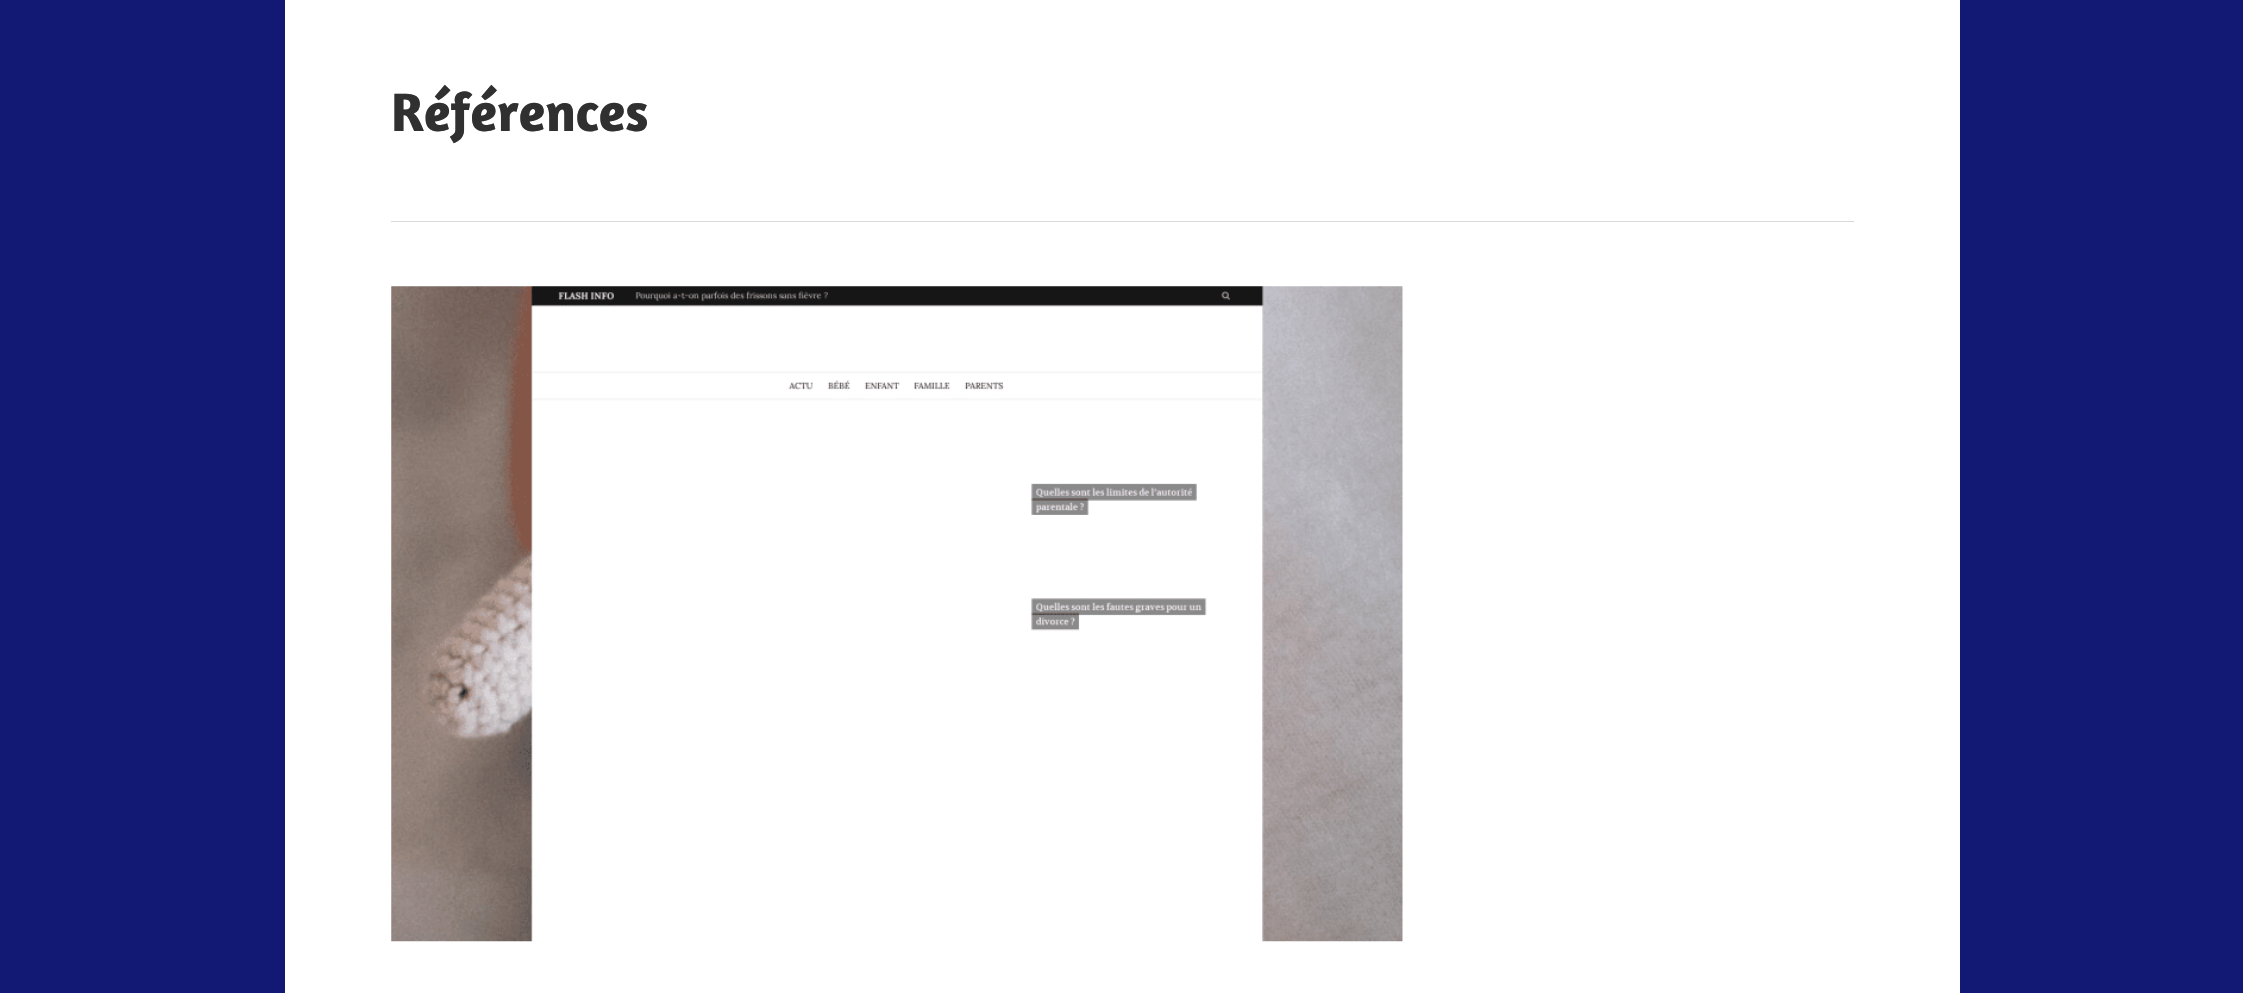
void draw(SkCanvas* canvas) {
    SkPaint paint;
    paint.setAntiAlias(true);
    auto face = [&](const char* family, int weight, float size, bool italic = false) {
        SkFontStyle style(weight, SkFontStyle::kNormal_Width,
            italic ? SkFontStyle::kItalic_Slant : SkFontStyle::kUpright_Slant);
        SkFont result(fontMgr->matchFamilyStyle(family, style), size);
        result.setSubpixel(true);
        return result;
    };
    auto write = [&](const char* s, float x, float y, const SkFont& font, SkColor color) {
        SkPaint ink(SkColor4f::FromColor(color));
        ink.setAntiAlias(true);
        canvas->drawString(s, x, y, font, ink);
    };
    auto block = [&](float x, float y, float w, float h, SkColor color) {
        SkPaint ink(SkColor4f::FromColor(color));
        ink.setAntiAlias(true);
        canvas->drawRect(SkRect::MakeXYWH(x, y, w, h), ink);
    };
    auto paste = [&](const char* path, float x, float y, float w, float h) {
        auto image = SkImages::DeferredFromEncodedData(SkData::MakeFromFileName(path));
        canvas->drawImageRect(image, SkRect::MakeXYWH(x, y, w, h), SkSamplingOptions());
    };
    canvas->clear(SkColorSetRGB(18, 25, 116));
    block(285, 0, 1675, 993, SK_ColorWHITE);
    auto kFont1 = face("Amaranth", 700, 55);
    write("Références", 391, 131, kFont1, SkColorSetRGB(48, 48, 48));
    block(391, 221, 1463, 1, SkColorSetRGB(217, 217, 217));
    paste("pic1.png", 391, 286, 1012, 656);
}
